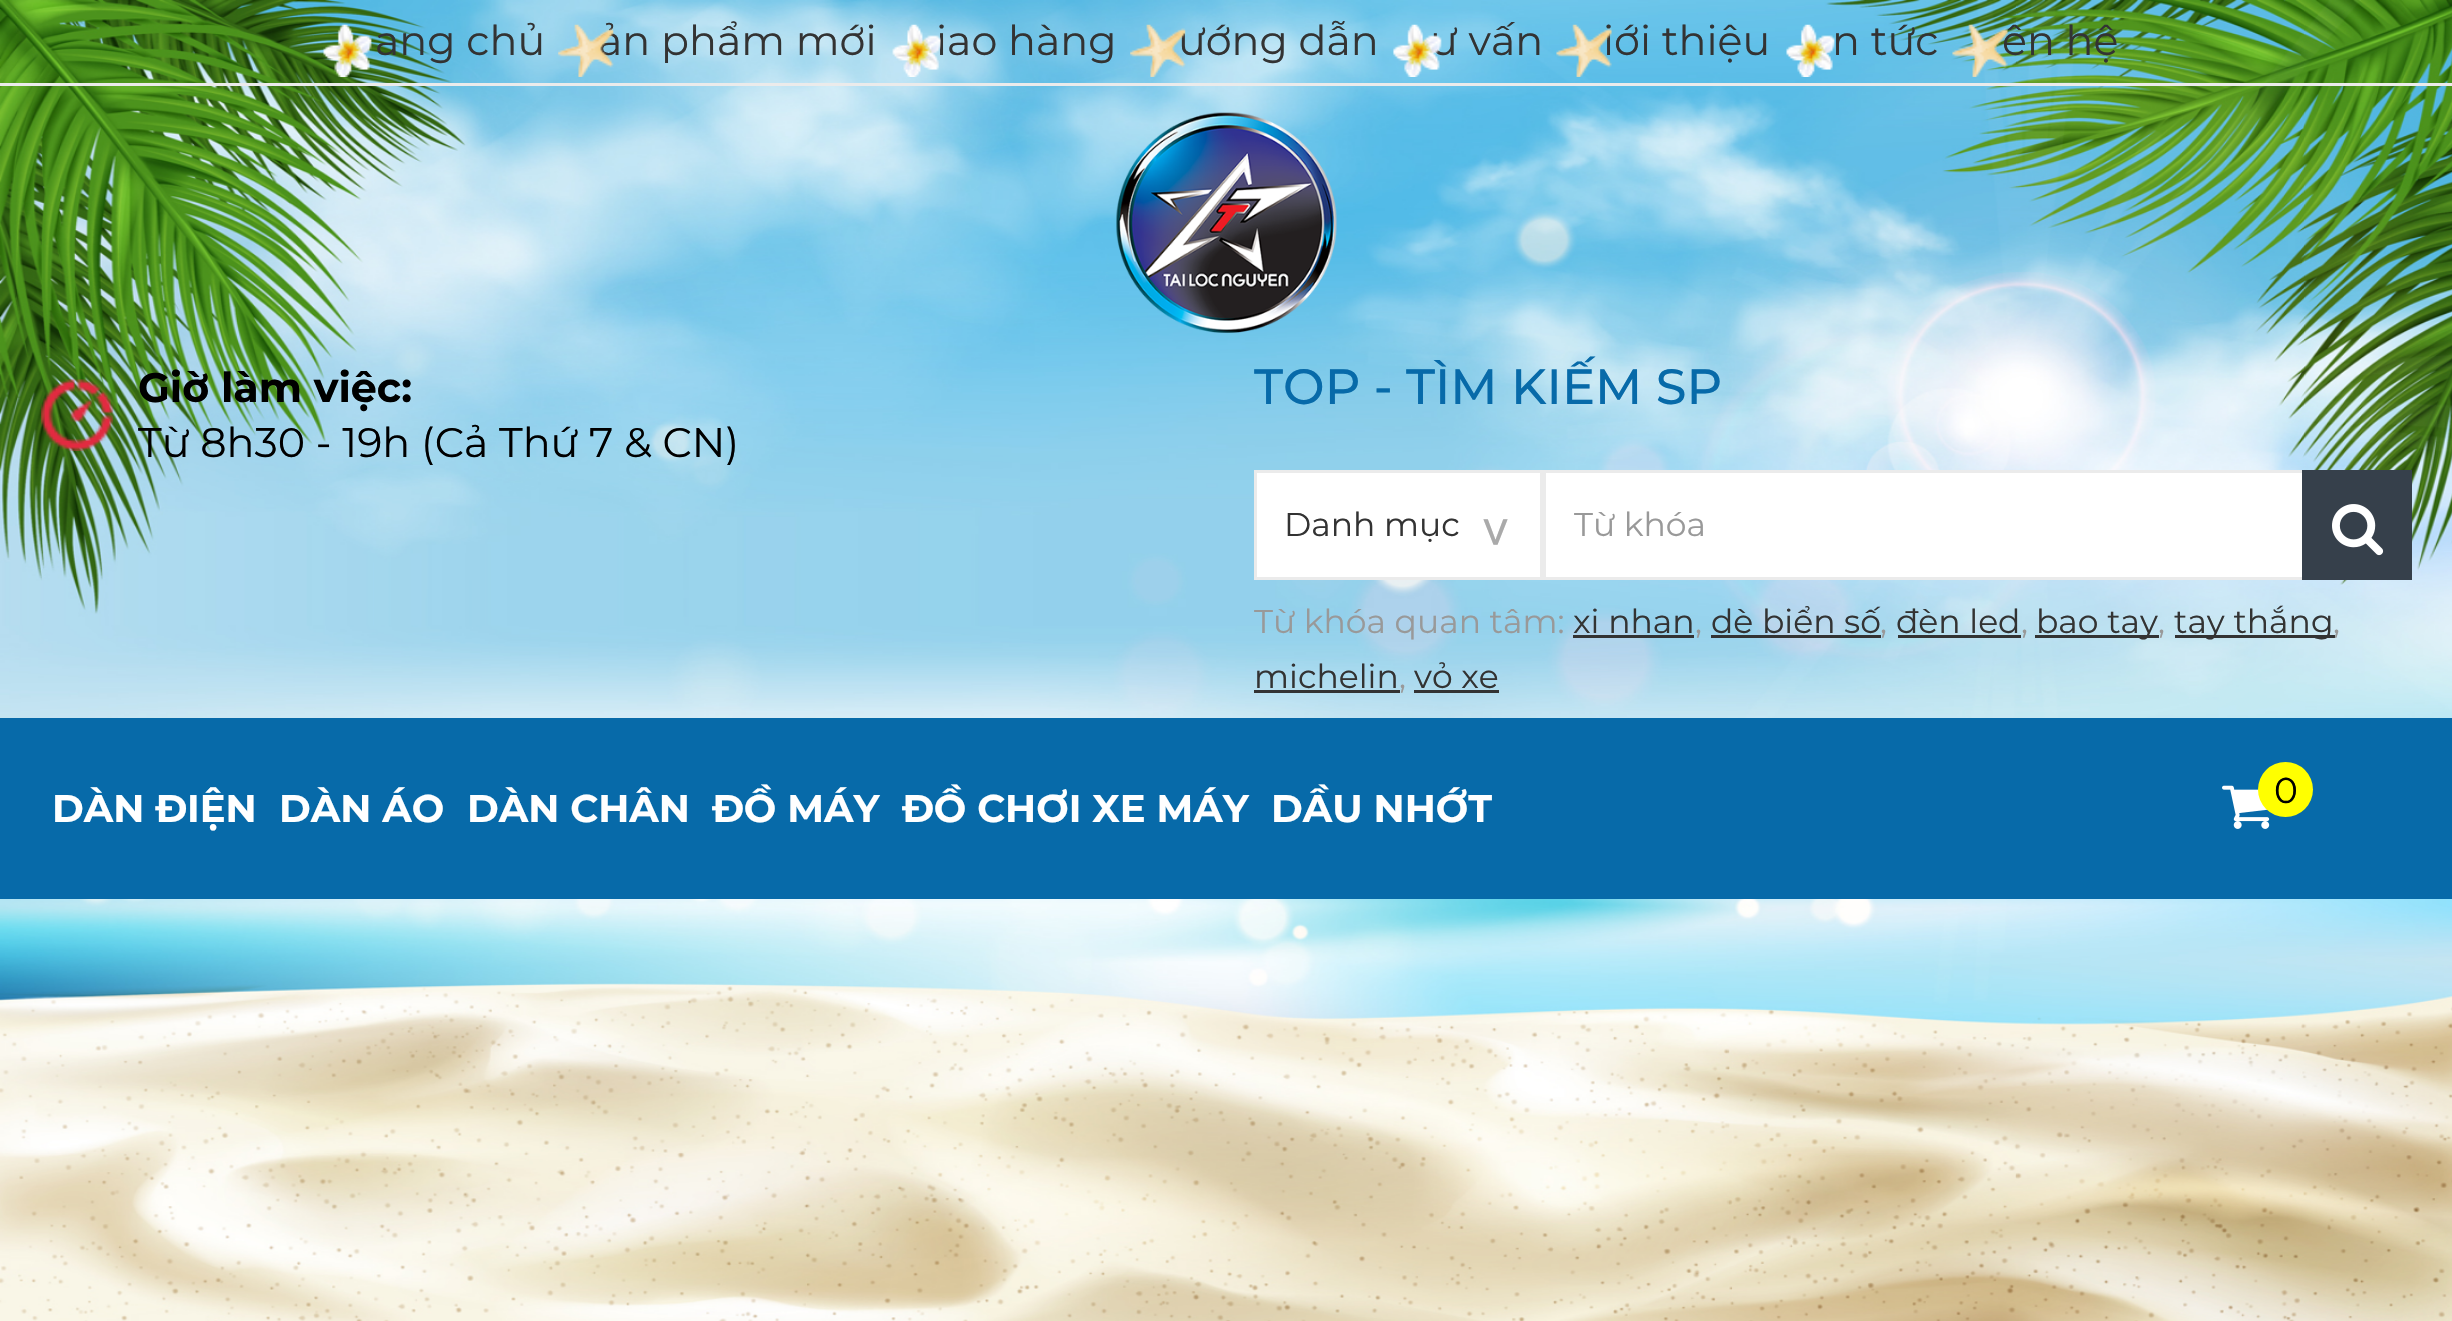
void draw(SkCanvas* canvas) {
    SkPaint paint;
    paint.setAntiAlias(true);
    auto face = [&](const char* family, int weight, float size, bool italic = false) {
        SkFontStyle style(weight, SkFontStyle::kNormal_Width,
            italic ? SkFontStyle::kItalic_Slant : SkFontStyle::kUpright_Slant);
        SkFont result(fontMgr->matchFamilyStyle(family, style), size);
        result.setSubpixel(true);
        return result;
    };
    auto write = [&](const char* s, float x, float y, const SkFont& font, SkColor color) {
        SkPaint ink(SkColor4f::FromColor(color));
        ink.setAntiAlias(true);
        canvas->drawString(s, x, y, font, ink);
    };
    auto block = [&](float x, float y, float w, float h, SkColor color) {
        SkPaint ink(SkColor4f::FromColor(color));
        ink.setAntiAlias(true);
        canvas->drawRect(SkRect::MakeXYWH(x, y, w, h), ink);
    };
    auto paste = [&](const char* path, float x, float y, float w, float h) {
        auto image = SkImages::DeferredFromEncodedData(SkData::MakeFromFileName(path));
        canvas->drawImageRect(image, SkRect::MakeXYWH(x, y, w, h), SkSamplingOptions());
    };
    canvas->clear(SK_ColorWHITE);
    paste("pic1.png", 0, 0, 2452, 1321);
    block(0, 83, 2452, 3, SkColorSetRGB(235, 235, 235));
    paste("pic2.png", 323, 24, 49, 53);
    auto kFont1 = face("Montserrat", 400, 41.25f);
    write("ang chủ", 375, 55, kFont1, SkColorSetRGB(51, 51, 51));
    write("ản phẩm mới", 598, 55, kFont1, SkColorSetRGB(51, 51, 51));
    paste("pic3.png", 558, 24, 56, 53);
    write("iao hàng", 936, 55, kFont1, SkColorSetRGB(51, 51, 51));
    paste("pic4.png", 892, 24, 49, 53);
    write("ướng dẫn", 1178, 55, kFont1, SkColorSetRGB(51, 51, 51));
    paste("pic5.png", 1130, 24, 56, 53);
    write("ư vấn", 1430, 55, kFont1, SkColorSetRGB(51, 51, 51));
    paste("pic6.png", 1393, 24, 49, 53);
    write("iới thiệu", 1603, 55, kFont1, SkColorSetRGB(51, 51, 51));
    paste("pic7.png", 1556, 24, 56, 53);
    paste("pic8.png", 1786, 24, 49, 53);
    write("n tức", 1832, 55, kFont1, SkColorSetRGB(51, 51, 51));
    write("ên hệ", 2002, 55, kFont1, SkColorSetRGB(51, 51, 51));
    paste("pic9.png", 1952, 24, 56, 53);
    paste("pic10.png", 1116, 112, 221, 221);
    paste("pic11.png", 41, 379, 72, 72);
    auto kFont2 = face("Montserrat", 700, 41.25f);
    write("Giờ làm việc:", 138, 402, kFont2, SK_ColorBLACK);
    write("Từ 8h30 - 19h (Cả Thứ 7 & CN)", 138, 457, kFont1, SK_ColorBLACK);
    auto kFont3 = face("Montserrat", 500, 49.5f);
    write("TOP - TÌM KIẾM SP", 1254, 404, kFont3, SkColorSetRGB(7, 106, 169));
    paint.setColor(SK_ColorWHITE);
    canvas->drawRect(SkRect::MakeXYWH(1255.5f, 471.5f, 286, 107), paint);
    paint.setStyle(SkPaint::kStroke_Style);
    paint.setStrokeWidth(3);
    paint.setColor(SkColorSetRGB(235, 235, 235));
    canvas->drawRect(SkRect::MakeXYWH(1255.5f, 471.5f, 286, 107), paint);
    auto kFont4 = face("Montserrat", 400, 33);
    write("Danh mục", 1284, 536, kFont4, SkColorSetRGB(51, 51, 51));
    auto kFont5 = face("DejaVu Sans Mono", 400, 49.5f);
    canvas->save();
    canvas->rotate(90, 1480, 517);
    write(">", 1480, 517, kFont5, SkColorSetRGB(170, 170, 170));
    canvas->restore();
    block(1546, 473, 756, 104, SK_ColorWHITE);
    canvas->drawRect(SkRect::MakeXYWH(1544.5f, 471.5f, 866, 107), paint);
    write("Từ khóa", 1574, 536, kFont4, SkColorSetRGB(153, 153, 153));
    block(2302, 470, 110, 110, SkColorSetRGB(54, 64, 75));
    paste("pic12.png", 2332, 504, 52, 52);
    write("Từ khóa quan tâm:", 1254, 633, kFont4, SkColorSetRGB(153, 153, 153));
    write("xi nhan", 1573, 633, kFont4, SkColorSetRGB(51, 51, 51));
    block(1573, 635, 121, 3, SkColorSetRGB(51, 51, 51));
    write(",", 1695, 633, kFont4, SkColorSetRGB(153, 153, 153));
    write("dè biển số", 1711, 633, kFont4, SkColorSetRGB(51, 51, 51));
    block(1711, 635, 170, 3, SkColorSetRGB(51, 51, 51));
    write(",", 1880, 633, kFont4, SkColorSetRGB(153, 153, 153));
    write("đèn led", 1896, 633, kFont4, SkColorSetRGB(51, 51, 51));
    block(1898, 635, 123, 3, SkColorSetRGB(51, 51, 51));
    write(",", 2021, 633, kFont4, SkColorSetRGB(153, 153, 153));
    block(2035, 635, 124, 3, SkColorSetRGB(51, 51, 51));
    write("bao tay", 2036, 633, kFont4, SkColorSetRGB(51, 51, 51));
    write(",", 2158, 633, kFont4, SkColorSetRGB(153, 153, 153));
    block(2175, 635, 160, 3, SkColorSetRGB(51, 51, 51));
    write("tay thắng", 2174, 633, kFont4, SkColorSetRGB(51, 51, 51));
    write(",", 2333, 633, kFont4, SkColorSetRGB(153, 153, 153));
    write("michelin", 1254, 688, kFont4, SkColorSetRGB(51, 51, 51));
    block(1254, 690, 146, 3, SkColorSetRGB(51, 51, 51));
    write(",", 1399, 688, kFont4, SkColorSetRGB(153, 153, 153));
    write("vỏ xe", 1414, 688, kFont4, SkColorSetRGB(51, 51, 51));
    block(1414, 690, 85, 3, SkColorSetRGB(51, 51, 51));
    block(0, 718, 2452, 181, SkColorSetRGB(7, 106, 169));
    auto kFont6 = face("Montserrat", 700, 38.5f);
    write("DÀN ĐIỆN", 52, 822, kFont6, SK_ColorWHITE);
    write("DÀN ÁO", 279, 822, kFont6, SK_ColorWHITE);
    write("DÀN CHÂN", 467, 822, kFont6, SK_ColorWHITE);
    write("ĐỒ MÁY", 712, 822, kFont6, SK_ColorWHITE);
    write("ĐỒ CHƠI XE MÁY", 902, 822, kFont6, SK_ColorWHITE);
    write("DẦU NHỚT", 1271, 822, kFont6, SK_ColorWHITE);
    paste("pic13.png", 2222, 785, 48, 44);
    paint.setStyle(SkPaint::kFill_Style);
    paint.setColor(SkColorSetRGB(255, 255, 0));
    canvas->drawCircle(2285.5f, 789.5f, 27.5f, paint);
    auto kFont7 = face("Montserrat", 400, 36);
    write("0", 2274, 803, kFont7, SK_ColorBLACK);
}
